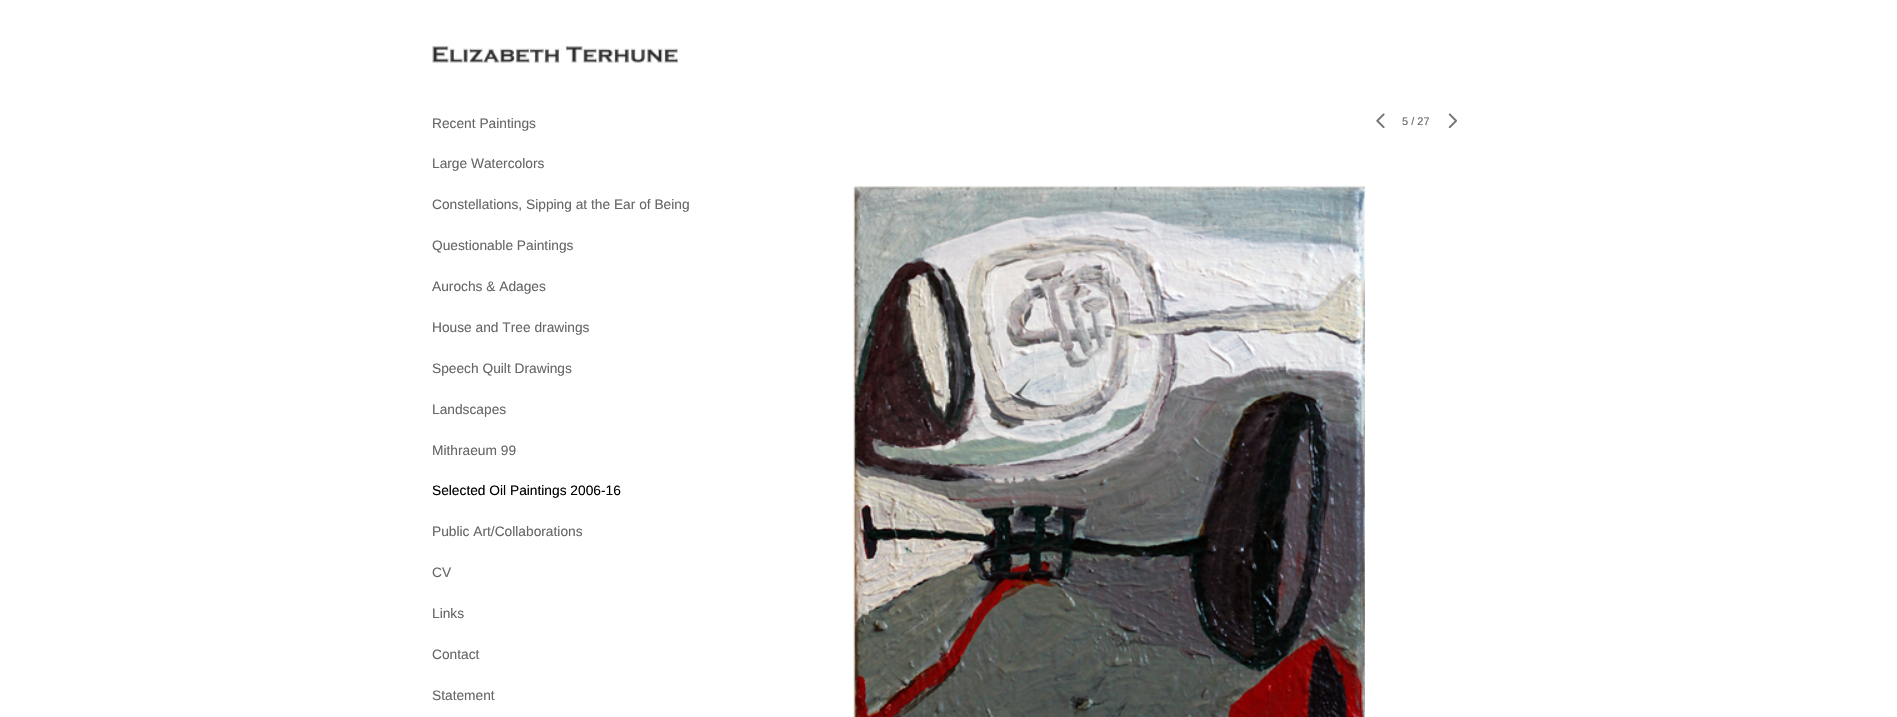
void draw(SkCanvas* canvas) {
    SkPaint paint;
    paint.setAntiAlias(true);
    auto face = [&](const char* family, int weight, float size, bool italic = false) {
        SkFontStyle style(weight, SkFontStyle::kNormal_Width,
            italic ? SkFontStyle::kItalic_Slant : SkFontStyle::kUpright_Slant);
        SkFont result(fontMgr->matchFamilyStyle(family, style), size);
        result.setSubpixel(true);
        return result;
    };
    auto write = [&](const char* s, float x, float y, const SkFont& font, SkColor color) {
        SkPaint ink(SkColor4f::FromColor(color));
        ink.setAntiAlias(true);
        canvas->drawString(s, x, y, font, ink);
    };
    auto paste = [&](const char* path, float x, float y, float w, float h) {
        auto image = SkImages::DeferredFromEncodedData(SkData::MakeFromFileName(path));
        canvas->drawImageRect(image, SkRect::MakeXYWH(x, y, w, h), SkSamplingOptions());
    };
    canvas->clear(SK_ColorWHITE);
    paste("pic1.png", 432, 46, 246, 17);
    auto kFont1 = face("Liberation Sans", 400, 13.75f);
    write("Recent Paintings", 432, 128, kFont1, SkColorSetRGB(102, 102, 102));
    write("Large Watercolors", 432, 168, kFont1, SkColorSetRGB(102, 102, 102));
    write("Constellations, Sipping at the Ear of Being", 432, 209, kFont1, SkColorSetRGB(102, 102, 102));
    write("Questionable Paintings", 432, 250, kFont1, SkColorSetRGB(102, 102, 102));
    write("Aurochs & Adages", 432, 291, kFont1, SkColorSetRGB(102, 102, 102));
    write("House and Tree drawings", 432, 332, kFont1, SkColorSetRGB(102, 102, 102));
    write("Speech Quilt Drawings", 432, 373, kFont1, SkColorSetRGB(102, 102, 102));
    write("Landscapes", 432, 414, kFont1, SkColorSetRGB(102, 102, 102));
    write("Mithraeum 99", 432, 455, kFont1, SkColorSetRGB(102, 102, 102));
    write("Selected Oil Paintings 2006-16", 432, 495, kFont1, SK_ColorBLACK);
    write("Public Art/Collaborations", 432, 536, kFont1, SkColorSetRGB(102, 102, 102));
    write("CV", 432, 577, kFont1, SkColorSetRGB(102, 102, 102));
    write("Links", 432, 618, kFont1, SkColorSetRGB(102, 102, 102));
    write("Contact", 432, 659, kFont1, SkColorSetRGB(102, 102, 102));
    write("Statement", 432, 700, kFont1, SkColorSetRGB(102, 102, 102));
    paste("pic2.png", 1376, 113, 9, 16);
    auto kFont2 = face("Liberation Sans", 400, 11);
    write("5 / 27", 1402, 125, kFont2, SkColorSetRGB(102, 102, 102));
    paste("pic3.png", 1448, 113, 10, 16);
    paste("pic4.png", 853, 186, 512, 531);
}
